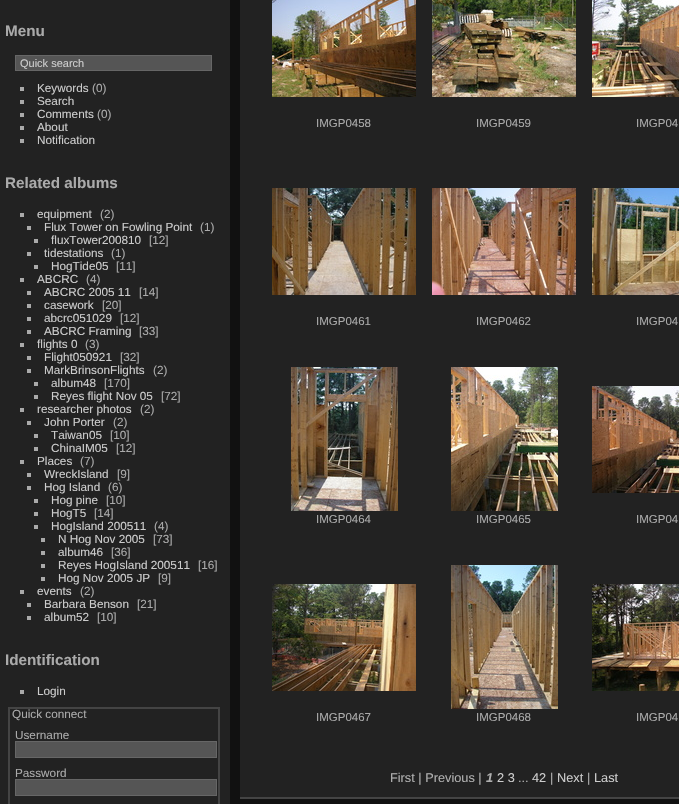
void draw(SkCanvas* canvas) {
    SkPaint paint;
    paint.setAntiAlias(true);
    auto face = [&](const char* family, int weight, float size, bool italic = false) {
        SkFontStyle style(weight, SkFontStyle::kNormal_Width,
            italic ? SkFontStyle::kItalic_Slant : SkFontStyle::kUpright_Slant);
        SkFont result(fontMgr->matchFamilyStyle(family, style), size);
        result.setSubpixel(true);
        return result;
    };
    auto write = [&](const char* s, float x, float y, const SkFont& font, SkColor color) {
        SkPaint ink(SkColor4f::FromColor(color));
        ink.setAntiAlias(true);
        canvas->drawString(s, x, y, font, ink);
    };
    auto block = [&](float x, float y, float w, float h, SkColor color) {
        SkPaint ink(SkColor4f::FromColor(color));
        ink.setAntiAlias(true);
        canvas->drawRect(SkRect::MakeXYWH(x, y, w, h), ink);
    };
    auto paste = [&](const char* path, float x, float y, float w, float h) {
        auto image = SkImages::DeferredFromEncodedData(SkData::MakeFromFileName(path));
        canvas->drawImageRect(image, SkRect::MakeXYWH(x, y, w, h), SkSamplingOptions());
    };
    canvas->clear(SkColorSetRGB(17, 17, 17));
    block(0, 0, 230, 804, SkColorSetRGB(34, 34, 34));
    auto kFont1 = face("Liberation Sans", 700, 15.25f);
    write("Menu", 5, 36, kFont1, SkColorSetRGB(170, 170, 170));
    paint.setColor(SkColorSetRGB(85, 85, 85));
    canvas->drawRect(SkRect::MakeXYWH(15.5f, 55.5f, 196, 15), paint);
    paint.setStyle(SkPaint::kStroke_Style);
    paint.setStrokeWidth(1);
    paint.setColor(SkColorSetRGB(102, 102, 102));
    canvas->drawRect(SkRect::MakeXYWH(15.5f, 55.5f, 196, 15), paint);
    auto kFont2 = face("Liberation Sans", 400, 11);
    write("Quick search", 20, 67, kFont2, SkColorSetRGB(204, 204, 204));
    block(20, 87, 4, 4, SkColorSetRGB(170, 170, 170));
    auto kFont3 = face("Liberation Sans", 400, 11.75f);
    write("Keywords", 37, 92, kFont3, SkColorSetRGB(204, 204, 204));
    write("(0)", 92, 92, kFont3, SkColorSetRGB(170, 170, 170));
    block(20, 100, 4, 4, SkColorSetRGB(170, 170, 170));
    write("Search", 37, 105, kFont3, SkColorSetRGB(204, 204, 204));
    block(20, 113, 4, 4, SkColorSetRGB(170, 170, 170));
    write("Comments", 37, 118, kFont3, SkColorSetRGB(204, 204, 204));
    write("(0)", 97, 118, kFont3, SkColorSetRGB(170, 170, 170));
    block(20, 126, 4, 4, SkColorSetRGB(170, 170, 170));
    write("About", 37, 131, kFont3, SkColorSetRGB(204, 204, 204));
    block(20, 139, 4, 4, SkColorSetRGB(170, 170, 170));
    write("Notification", 37, 144, kFont3, SkColorSetRGB(204, 204, 204));
    write("Related albums", 5, 188, kFont1, SkColorSetRGB(170, 170, 170));
    block(20, 213, 4, 4, SkColorSetRGB(170, 170, 170));
    write("equipment", 37, 218, kFont3, SkColorSetRGB(204, 204, 204));
    write("(2)", 100, 218, kFont3, SkColorSetRGB(170, 170, 170));
    block(27, 226, 4, 4, SkColorSetRGB(170, 170, 170));
    write("Flux Tower on Fowling Point", 44, 231, kFont3, SkColorSetRGB(204, 204, 204));
    write("(1)", 200, 231, kFont3, SkColorSetRGB(170, 170, 170));
    block(34, 239, 4, 4, SkColorSetRGB(170, 170, 170));
    write("fluxTower200810", 51, 244, kFont3, SkColorSetRGB(204, 204, 204));
    write("[12]", 149, 244, kFont3, SkColorSetRGB(170, 170, 170));
    block(27, 252, 4, 4, SkColorSetRGB(170, 170, 170));
    write("tidestations", 44, 257, kFont3, SkColorSetRGB(204, 204, 204));
    write("(1)", 111, 257, kFont3, SkColorSetRGB(170, 170, 170));
    block(34, 265, 4, 4, SkColorSetRGB(170, 170, 170));
    write("HogTide05", 51, 270, kFont3, SkColorSetRGB(204, 204, 204));
    write("[11]", 116, 270, kFont3, SkColorSetRGB(170, 170, 170));
    block(20, 278, 4, 4, SkColorSetRGB(170, 170, 170));
    write("ABCRC", 37, 283, kFont3, SkColorSetRGB(204, 204, 204));
    write("(4)", 86, 283, kFont3, SkColorSetRGB(170, 170, 170));
    block(27, 291, 4, 4, SkColorSetRGB(170, 170, 170));
    write("ABCRC 2005 11", 44, 296, kFont3, SkColorSetRGB(204, 204, 204));
    write("[14]", 139, 296, kFont3, SkColorSetRGB(170, 170, 170));
    block(27, 304, 4, 4, SkColorSetRGB(170, 170, 170));
    write("casework", 44, 309, kFont3, SkColorSetRGB(204, 204, 204));
    write("[20]", 102, 309, kFont3, SkColorSetRGB(170, 170, 170));
    block(27, 317, 4, 4, SkColorSetRGB(170, 170, 170));
    write("abcrc051029", 44, 322, kFont3, SkColorSetRGB(204, 204, 204));
    write("[12]", 120, 322, kFont3, SkColorSetRGB(170, 170, 170));
    block(27, 330, 4, 4, SkColorSetRGB(170, 170, 170));
    write("ABCRC Framing", 44, 335, kFont3, SkColorSetRGB(204, 204, 204));
    write("[33]", 139, 335, kFont3, SkColorSetRGB(170, 170, 170));
    block(20, 343, 4, 4, SkColorSetRGB(170, 170, 170));
    write("flights 0", 37, 348, kFont3, SkColorSetRGB(204, 204, 204));
    write("(3)", 85, 348, kFont3, SkColorSetRGB(170, 170, 170));
    block(27, 356, 4, 4, SkColorSetRGB(170, 170, 170));
    write("Flight050921", 44, 361, kFont3, SkColorSetRGB(204, 204, 204));
    write("[32]", 120, 361, kFont3, SkColorSetRGB(170, 170, 170));
    block(27, 369, 4, 4, SkColorSetRGB(170, 170, 170));
    write("MarkBrinsonFlights", 44, 374, kFont3, SkColorSetRGB(204, 204, 204));
    write("(2)", 153, 374, kFont3, SkColorSetRGB(170, 170, 170));
    block(34, 382, 4, 4, SkColorSetRGB(170, 170, 170));
    write("album48", 51, 387, kFont3, SkColorSetRGB(204, 204, 204));
    write("[170]", 104, 387, kFont3, SkColorSetRGB(170, 170, 170));
    block(34, 395, 4, 4, SkColorSetRGB(170, 170, 170));
    write("Reyes flight Nov 05", 51, 400, kFont3, SkColorSetRGB(204, 204, 204));
    write("[72]", 161, 400, kFont3, SkColorSetRGB(170, 170, 170));
    block(20, 408, 4, 4, SkColorSetRGB(170, 170, 170));
    write("researcher photos", 37, 413, kFont3, SkColorSetRGB(204, 204, 204));
    write("(2)", 140, 413, kFont3, SkColorSetRGB(170, 170, 170));
    block(27, 421, 4, 4, SkColorSetRGB(170, 170, 170));
    write("John Porter", 44, 426, kFont3, SkColorSetRGB(204, 204, 204));
    write("(2)", 113, 426, kFont3, SkColorSetRGB(170, 170, 170));
    block(34, 434, 4, 4, SkColorSetRGB(170, 170, 170));
    write("Taiwan05", 51, 439, kFont3, SkColorSetRGB(204, 204, 204));
    write("[10]", 110, 439, kFont3, SkColorSetRGB(170, 170, 170));
    block(34, 447, 4, 4, SkColorSetRGB(170, 170, 170));
    write("ChinaIM05", 51, 452, kFont3, SkColorSetRGB(204, 204, 204));
    write("[12]", 116, 452, kFont3, SkColorSetRGB(170, 170, 170));
    block(20, 460, 4, 4, SkColorSetRGB(170, 170, 170));
    write("Places", 37, 465, kFont3, SkColorSetRGB(204, 204, 204));
    write("(7)", 80, 465, kFont3, SkColorSetRGB(170, 170, 170));
    block(27, 473, 4, 4, SkColorSetRGB(170, 170, 170));
    write("WreckIsland", 44, 478, kFont3, SkColorSetRGB(204, 204, 204));
    write("[9]", 117, 478, kFont3, SkColorSetRGB(170, 170, 170));
    block(27, 486, 4, 4, SkColorSetRGB(170, 170, 170));
    write("Hog Island", 44, 491, kFont3, SkColorSetRGB(204, 204, 204));
    write("(6)", 108, 491, kFont3, SkColorSetRGB(170, 170, 170));
    block(34, 499, 4, 4, SkColorSetRGB(170, 170, 170));
    write("Hog pine", 51, 504, kFont3, SkColorSetRGB(204, 204, 204));
    write("[10]", 106, 504, kFont3, SkColorSetRGB(170, 170, 170));
    block(34, 512, 4, 4, SkColorSetRGB(170, 170, 170));
    write("HogT5", 51, 517, kFont3, SkColorSetRGB(204, 204, 204));
    write("[14]", 94, 517, kFont3, SkColorSetRGB(170, 170, 170));
    block(34, 525, 4, 4, SkColorSetRGB(170, 170, 170));
    write("HogIsland 200511", 51, 530, kFont3, SkColorSetRGB(204, 204, 204));
    write("(4)", 154, 530, kFont3, SkColorSetRGB(170, 170, 170));
    block(41, 538, 4, 4, SkColorSetRGB(170, 170, 170));
    write("N Hog Nov 2005", 58, 543, kFont3, SkColorSetRGB(204, 204, 204));
    write("[73]", 153, 543, kFont3, SkColorSetRGB(170, 170, 170));
    block(41, 551, 4, 4, SkColorSetRGB(170, 170, 170));
    write("album46", 58, 556, kFont3, SkColorSetRGB(204, 204, 204));
    write("[36]", 111, 556, kFont3, SkColorSetRGB(170, 170, 170));
    block(41, 564, 4, 4, SkColorSetRGB(170, 170, 170));
    write("Reyes HogIsland 200511", 58, 569, kFont3, SkColorSetRGB(204, 204, 204));
    write("[16]", 198, 569, kFont3, SkColorSetRGB(170, 170, 170));
    block(41, 577, 4, 4, SkColorSetRGB(170, 170, 170));
    write("Hog Nov 2005 JP", 58, 582, kFont3, SkColorSetRGB(204, 204, 204));
    write("[9]", 158, 582, kFont3, SkColorSetRGB(170, 170, 170));
    block(20, 590, 4, 4, SkColorSetRGB(170, 170, 170));
    write("events", 37, 595, kFont3, SkColorSetRGB(204, 204, 204));
    write("(2)", 80, 595, kFont3, SkColorSetRGB(170, 170, 170));
    block(27, 603, 4, 4, SkColorSetRGB(170, 170, 170));
    write("Barbara Benson", 44, 608, kFont3, SkColorSetRGB(204, 204, 204));
    write("[21]", 137, 608, kFont3, SkColorSetRGB(170, 170, 170));
    block(27, 616, 4, 4, SkColorSetRGB(170, 170, 170));
    write("album52", 44, 621, kFont3, SkColorSetRGB(204, 204, 204));
    write("[10]", 97, 621, kFont3, SkColorSetRGB(170, 170, 170));
    write("Identification", 5, 665, kFont1, SkColorSetRGB(170, 170, 170));
    block(20, 690, 4, 4, SkColorSetRGB(170, 170, 170));
    write("Login", 37, 695, kFont3, SkColorSetRGB(204, 204, 204));
    paint.setStrokeWidth(2);
    paint.setColor(SkColorSetRGB(68, 68, 68));
    canvas->drawRect(SkRect::MakeXYWH(9, 708, 210, 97), paint);
    write("Quick connect", 12, 718, kFont3, SkColorSetRGB(170, 170, 170));
    write("Username", 15, 739, kFont3, SkColorSetRGB(170, 170, 170));
    paint.setStyle(SkPaint::kFill_Style);
    paint.setColor(SkColorSetRGB(85, 85, 85));
    canvas->drawRect(SkRect::MakeXYWH(15.5f, 741.5f, 201, 16), paint);
    paint.setStyle(SkPaint::kStroke_Style);
    paint.setStrokeWidth(1);
    paint.setColor(SkColorSetRGB(102, 102, 102));
    canvas->drawRect(SkRect::MakeXYWH(15.5f, 741.5f, 201, 16), paint);
    write("Password", 15, 777, kFont3, SkColorSetRGB(170, 170, 170));
    paint.setStyle(SkPaint::kFill_Style);
    paint.setColor(SkColorSetRGB(85, 85, 85));
    canvas->drawRect(SkRect::MakeXYWH(15.5f, 779.5f, 201, 16), paint);
    paint.setStyle(SkPaint::kStroke_Style);
    paint.setColor(SkColorSetRGB(102, 102, 102));
    canvas->drawRect(SkRect::MakeXYWH(15.5f, 779.5f, 201, 16), paint);
    block(240, 0, 439, 797, SkColorSetRGB(34, 34, 34));
    block(240, 797, 439, 2, SkColorSetRGB(68, 68, 68));
    paste("pic1.png", 272, 0, 144, 97);
    auto kFont4 = face("Liberation Sans", 400, 11.5f);
    write("IMGP0458", 316, 127, kFont4, SkColorSetRGB(170, 170, 170));
    paste("pic2.png", 432, 0, 144, 97);
    write("IMGP0459", 476, 127, kFont4, SkColorSetRGB(170, 170, 170));
    paste("pic3.png", 592, 0, 87, 97);
    write("IMGP04", 636, 127, kFont4, SkColorSetRGB(170, 170, 170));
    paste("pic4.png", 272, 188, 144, 107);
    write("IMGP0461", 316, 325, kFont4, SkColorSetRGB(170, 170, 170));
    paste("pic5.png", 432, 188, 144, 107);
    write("IMGP0462", 476, 325, kFont4, SkColorSetRGB(170, 170, 170));
    paste("pic6.png", 592, 188, 87, 107);
    write("IMGP04", 636, 325, kFont4, SkColorSetRGB(170, 170, 170));
    paste("pic7.png", 291, 367, 107, 144);
    write("IMGP0464", 316, 523, kFont4, SkColorSetRGB(170, 170, 170));
    paste("pic8.png", 451, 367, 107, 144);
    write("IMGP0465", 476, 523, kFont4, SkColorSetRGB(170, 170, 170));
    paste("pic9.png", 592, 386, 87, 107);
    write("IMGP04", 636, 523, kFont4, SkColorSetRGB(170, 170, 170));
    paste("pic10.png", 272, 584, 144, 107);
    write("IMGP0467", 316, 721, kFont4, SkColorSetRGB(170, 170, 170));
    paste("pic11.png", 451, 565, 107, 144);
    write("IMGP0468", 476, 721, kFont4, SkColorSetRGB(170, 170, 170));
    paste("pic12.png", 592, 584, 87, 107);
    write("IMGP04", 636, 721, kFont4, SkColorSetRGB(170, 170, 170));
    auto kFont5 = face("Liberation Sans", 400, 12.75f);
    write("First | Previous |", 390, 782, kFont5, SkColorSetRGB(176, 176, 176));
    auto kFont6 = face("Liberation Sans", 700, 12.75f, true);
    write("1", 486, 782, kFont6, SkColorSetRGB(176, 176, 176));
    write("2 3", 497, 782, kFont5, SkColorSetRGB(204, 204, 204));
    write("...", 518, 782, kFont5, SkColorSetRGB(176, 176, 176));
    write("42", 532, 782, kFont5, SkColorSetRGB(204, 204, 204));
    write("|", 550, 782, kFont5, SkColorSetRGB(176, 176, 176));
    write("Next", 557, 782, kFont5, SkColorSetRGB(204, 204, 204));
    write("|", 587, 782, kFont5, SkColorSetRGB(176, 176, 176));
    write("Last", 594, 782, kFont5, SkColorSetRGB(204, 204, 204));
}
